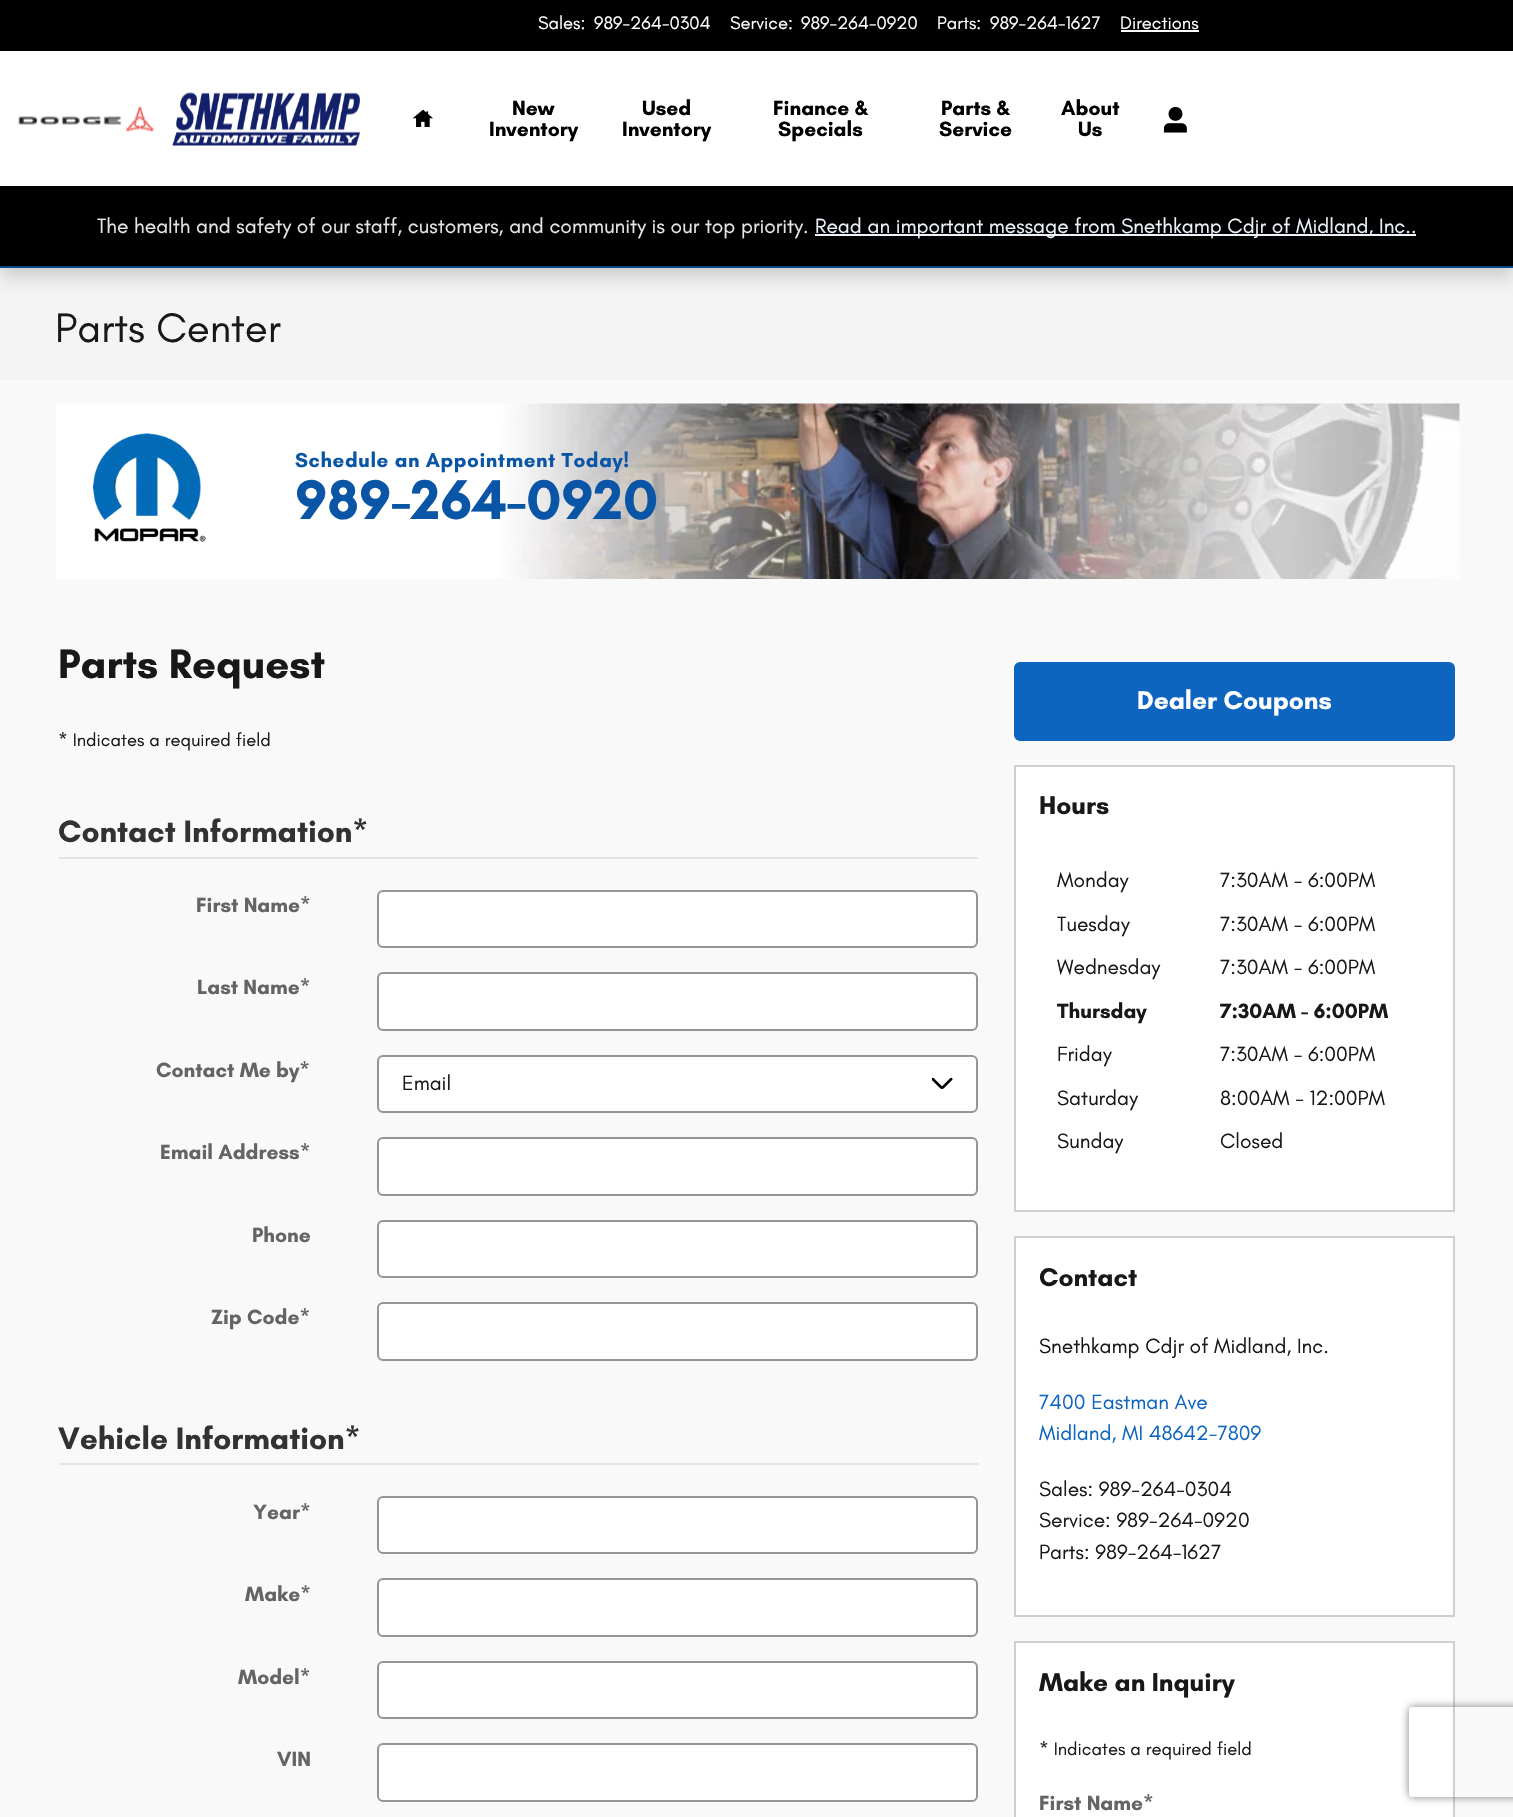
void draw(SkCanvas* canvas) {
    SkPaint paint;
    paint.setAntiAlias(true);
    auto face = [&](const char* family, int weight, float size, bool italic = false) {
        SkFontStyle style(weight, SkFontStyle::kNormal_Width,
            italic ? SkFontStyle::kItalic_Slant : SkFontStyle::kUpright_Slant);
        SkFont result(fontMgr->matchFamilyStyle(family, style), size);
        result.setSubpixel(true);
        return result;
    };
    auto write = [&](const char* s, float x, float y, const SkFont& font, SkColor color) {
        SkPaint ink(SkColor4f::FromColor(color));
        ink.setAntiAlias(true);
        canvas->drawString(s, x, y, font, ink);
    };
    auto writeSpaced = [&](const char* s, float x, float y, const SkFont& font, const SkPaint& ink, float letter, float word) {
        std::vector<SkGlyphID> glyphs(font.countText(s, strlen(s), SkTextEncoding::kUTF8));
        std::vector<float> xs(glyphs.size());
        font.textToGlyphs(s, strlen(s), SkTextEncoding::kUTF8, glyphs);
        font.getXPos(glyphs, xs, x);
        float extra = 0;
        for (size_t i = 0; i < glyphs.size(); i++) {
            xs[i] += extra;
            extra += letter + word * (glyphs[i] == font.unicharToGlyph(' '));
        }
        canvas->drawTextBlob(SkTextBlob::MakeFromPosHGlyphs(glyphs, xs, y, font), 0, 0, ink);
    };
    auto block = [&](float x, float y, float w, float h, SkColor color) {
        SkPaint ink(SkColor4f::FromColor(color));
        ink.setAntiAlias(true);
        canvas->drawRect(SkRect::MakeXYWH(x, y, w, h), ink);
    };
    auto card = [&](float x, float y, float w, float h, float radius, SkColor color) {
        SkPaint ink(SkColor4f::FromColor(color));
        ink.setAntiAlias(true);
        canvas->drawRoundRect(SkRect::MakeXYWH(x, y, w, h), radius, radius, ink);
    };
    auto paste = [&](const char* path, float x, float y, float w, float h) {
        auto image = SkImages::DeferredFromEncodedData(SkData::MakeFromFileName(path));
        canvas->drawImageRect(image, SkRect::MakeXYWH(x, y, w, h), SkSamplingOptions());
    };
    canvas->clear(SkColorSetRGB(249, 249, 250));
    block(0, 268, 1513, 112, SkColorSetRGB(244, 244, 244));
    paint.setColor(SkColorSetARGB(46, 0, 0, 0));
    paint.setMaskFilter(SkMaskFilter::MakeBlur(kNormal_SkBlurStyle, 9));
    canvas->drawRect(SkRect::MakeXYWH(0, 9, 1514, 267), paint);
    paint.setMaskFilter(nullptr);
    block(0, 51, 1513, 135, SK_ColorWHITE);
    block(0, 266, 1513, 2, SkColorSetRGB(10, 70, 141));
    block(0, 0, 1513, 51, SK_ColorBLACK);
    auto kFont1 = face("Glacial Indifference", 400, 18.4f);
    write("Sales:", 538, 29, kFont1, SK_ColorWHITE);
    write("989-264-0304", 594, 29, kFont1, SK_ColorWHITE);
    write("Service:", 730, 29, kFont1, SK_ColorWHITE);
    write("989-264-0920", 801, 29, kFont1, SK_ColorWHITE);
    write("Parts:", 937, 29, kFont1, SK_ColorWHITE);
    write("989-264-1627", 990, 29, kFont1, SK_ColorWHITE);
    write("Directions", 1120, 29, kFont1, SK_ColorWHITE);
    block(1121, 30, 78, 2, SK_ColorWHITE);
    paste("pic1.png", 18, 106, 136, 26);
    paste("pic2.png", 172, 92, 188, 54);
    paste("pic3.png", 412, 109, 21, 18);
    auto kFont2 = face("Glacial Indifference", 700, 21);
    write("New", 512, 115, kFont2, SK_ColorBLACK);
    write("Inventory", 489, 136, kFont2, SK_ColorBLACK);
    write("Used", 642, 115, kFont2, SK_ColorBLACK);
    write("Inventory", 622, 136, kFont2, SK_ColorBLACK);
    write("Finance &", 773, 115, kFont2, SK_ColorBLACK);
    write("Specials", 778, 136, kFont2, SK_ColorBLACK);
    write("Parts &", 941, 115, kFont2, SK_ColorBLACK);
    write("Service", 939, 136, kFont2, SK_ColorBLACK);
    write("About", 1061, 115, kFont2, SK_ColorBLACK);
    write("Us", 1078, 136, kFont2, SK_ColorBLACK);
    paste("pic4.png", 1163, 106, 24, 27);
    block(0, 186, 1513, 80, SK_ColorBLACK);
    auto kFont3 = face("Glacial Indifference", 400, 21);
    write("The health and safety of our staff, customers, and community is our top priority.", 97, 233, kFont3, SkColorSetRGB(230, 230, 230));
    block(815, 234, 601, 2, SkColorSetRGB(236, 243, 250));
    write("Read an important message from Snethkamp Cdjr of Midland, Inc..", 815, 233, kFont3, SkColorSetRGB(236, 243, 250));
    auto kFont4 = face("Glacial Indifference", 400, 42);
    write("Parts Center", 55, 342, kFont4, SkColorSetRGB(24, 24, 24));
    paste("pic5.png", 56, 403, 1404, 176);
    paste("pic6.png", 93, 433, 113, 109);
    auto kFont5 = face("Glacial Indifference", 700, 20.6f);
    paint.setColor(SkColorSetRGB(11, 85, 166));
    writeSpaced("Schedule an Appointment Today!", 295, 467, kFont5, paint, 0.6f, 0);
    auto kFont6 = face("Glacial Indifference", 700, 57);
    write("989-264-0920", 295, 519, kFont6, SkColorSetRGB(11, 85, 166));
    auto kFont7 = face("Glacial Indifference", 700, 42);
    write("Parts Request", 58, 678, kFont7, SkColorSetRGB(24, 24, 24));
    write("* Indicates a required field", 58, 746, kFont1, SkColorSetRGB(24, 24, 24));
    block(59, 857, 919, 2, SkColorSetRGB(228, 229, 230));
    auto kFont8 = face("Glacial Indifference", 700, 31.5f);
    write("Contact Information*", 58, 842, kFont8, SkColorSetRGB(50, 50, 50));
    write("First Name*", 196, 912, kFont2, SkColorSetRGB(100, 100, 100));
    paint.setColor(SK_ColorWHITE);
    canvas->drawRoundRect(SkRect::MakeXYWH(378, 891, 599, 56), 5, 5, paint);
    paint.setStyle(SkPaint::kStroke_Style);
    paint.setStrokeWidth(2);
    paint.setColor(SkColorSetRGB(148, 149, 153));
    canvas->drawRoundRect(SkRect::MakeXYWH(378, 891, 599, 56), 5, 5, paint);
    write("Last Name*", 197, 994, kFont2, SkColorSetRGB(100, 100, 100));
    paint.setStyle(SkPaint::kFill_Style);
    paint.setColor(SK_ColorWHITE);
    canvas->drawRoundRect(SkRect::MakeXYWH(378, 973, 599, 57), 5, 5, paint);
    paint.setStyle(SkPaint::kStroke_Style);
    paint.setColor(SkColorSetRGB(148, 149, 153));
    canvas->drawRoundRect(SkRect::MakeXYWH(378, 973, 599, 57), 5, 5, paint);
    write("Contact Me by*", 156, 1077, kFont2, SkColorSetRGB(100, 100, 100));
    card(377, 1055, 601, 58, 6, SK_ColorWHITE);
    paste("pic7.png", 932, 1077, 21, 12);
    canvas->drawRoundRect(SkRect::MakeXYWH(378, 1056, 599, 56), 5, 5, paint);
    write("Email", 402, 1090, kFont3, SkColorSetRGB(24, 24, 24));
    write("Email Address*", 160, 1159, kFont2, SkColorSetRGB(100, 100, 100));
    paint.setStyle(SkPaint::kFill_Style);
    paint.setColor(SK_ColorWHITE);
    canvas->drawRoundRect(SkRect::MakeXYWH(378, 1138, 599, 57), 5, 5, paint);
    paint.setStyle(SkPaint::kStroke_Style);
    paint.setColor(SkColorSetRGB(148, 149, 153));
    canvas->drawRoundRect(SkRect::MakeXYWH(378, 1138, 599, 57), 5, 5, paint);
    write("Phone", 252, 1242, kFont2, SkColorSetRGB(100, 100, 100));
    paint.setStyle(SkPaint::kFill_Style);
    paint.setColor(SK_ColorWHITE);
    canvas->drawRoundRect(SkRect::MakeXYWH(378, 1221, 599, 56), 5, 5, paint);
    paint.setStyle(SkPaint::kStroke_Style);
    paint.setColor(SkColorSetRGB(148, 149, 153));
    canvas->drawRoundRect(SkRect::MakeXYWH(378, 1221, 599, 56), 5, 5, paint);
    write("Zip Code*", 211, 1324, kFont2, SkColorSetRGB(100, 100, 100));
    paint.setStyle(SkPaint::kFill_Style);
    paint.setColor(SK_ColorWHITE);
    canvas->drawRoundRect(SkRect::MakeXYWH(378, 1303, 599, 57), 5, 5, paint);
    paint.setStyle(SkPaint::kStroke_Style);
    paint.setColor(SkColorSetRGB(148, 149, 153));
    canvas->drawRoundRect(SkRect::MakeXYWH(378, 1303, 599, 57), 5, 5, paint);
    block(59, 1463, 919, 2, SkColorSetRGB(228, 229, 230));
    write("Vehicle Information*", 58, 1449, kFont8, SkColorSetRGB(50, 50, 50));
    write("Year*", 253, 1519, kFont2, SkColorSetRGB(100, 100, 100));
    paint.setStyle(SkPaint::kFill_Style);
    paint.setColor(SK_ColorWHITE);
    canvas->drawRoundRect(SkRect::MakeXYWH(378, 1497, 599, 56), 5, 5, paint);
    paint.setStyle(SkPaint::kStroke_Style);
    paint.setColor(SkColorSetRGB(148, 149, 153));
    canvas->drawRoundRect(SkRect::MakeXYWH(378, 1497, 599, 56), 5, 5, paint);
    write("Make*", 245, 1601, kFont2, SkColorSetRGB(100, 100, 100));
    paint.setStyle(SkPaint::kFill_Style);
    paint.setColor(SK_ColorWHITE);
    canvas->drawRoundRect(SkRect::MakeXYWH(378, 1579, 599, 57), 5, 5, paint);
    paint.setStyle(SkPaint::kStroke_Style);
    paint.setColor(SkColorSetRGB(148, 149, 153));
    canvas->drawRoundRect(SkRect::MakeXYWH(378, 1579, 599, 57), 5, 5, paint);
    write("Model*", 238, 1684, kFont2, SkColorSetRGB(100, 100, 100));
    paint.setStyle(SkPaint::kFill_Style);
    paint.setColor(SK_ColorWHITE);
    canvas->drawRoundRect(SkRect::MakeXYWH(378, 1662, 599, 56), 5, 5, paint);
    paint.setStyle(SkPaint::kStroke_Style);
    paint.setColor(SkColorSetRGB(148, 149, 153));
    canvas->drawRoundRect(SkRect::MakeXYWH(378, 1662, 599, 56), 5, 5, paint);
    write("VIN", 277, 1766, kFont2, SkColorSetRGB(100, 100, 100));
    paint.setStyle(SkPaint::kFill_Style);
    paint.setColor(SK_ColorWHITE);
    canvas->drawRoundRect(SkRect::MakeXYWH(378, 1744, 599, 57), 5, 5, paint);
    paint.setStyle(SkPaint::kStroke_Style);
    paint.setColor(SkColorSetRGB(148, 149, 153));
    canvas->drawRoundRect(SkRect::MakeXYWH(378, 1744, 599, 57), 5, 5, paint);
    paint.setStyle(SkPaint::kFill_Style);
    paint.setColor(SkColorSetRGB(13, 101, 191));
    canvas->drawRoundRect(SkRect::MakeXYWH(1015, 663, 439, 77), 5, 5, paint);
    paint.setStyle(SkPaint::kStroke_Style);
    canvas->drawRoundRect(SkRect::MakeXYWH(1015, 663, 439, 77), 5, 5, paint);
    auto kFont9 = face("Glacial Indifference", 700, 26.25f);
    write("Dealer Coupons", 1137, 709, kFont9, SK_ColorWHITE);
    paint.setStyle(SkPaint::kFill_Style);
    paint.setColor(SK_ColorWHITE);
    canvas->drawRect(SkRect::MakeXYWH(1015, 766, 439, 445), paint);
    paint.setStyle(SkPaint::kStroke_Style);
    paint.setColor(SkColorSetRGB(206, 207, 209));
    canvas->drawRect(SkRect::MakeXYWH(1015, 766, 439, 445), paint);
    write("Hours", 1039, 814, kFont9, SkColorSetRGB(24, 24, 24));
    write("Monday", 1057, 887, kFont3, SkColorSetRGB(24, 24, 24));
    write("7:30AM - 6:00PM", 1220, 887, kFont3, SkColorSetRGB(24, 24, 24));
    write("Tuesday", 1057, 931, kFont3, SkColorSetRGB(24, 24, 24));
    write("7:30AM - 6:00PM", 1220, 931, kFont3, SkColorSetRGB(24, 24, 24));
    write("Wednesday", 1057, 974, kFont3, SkColorSetRGB(24, 24, 24));
    write("7:30AM - 6:00PM", 1220, 974, kFont3, SkColorSetRGB(24, 24, 24));
    write("Thursday", 1057, 1018, kFont2, SkColorSetRGB(24, 24, 24));
    write("7:30AM - 6:00PM", 1220, 1018, kFont2, SkColorSetRGB(24, 24, 24));
    write("Friday", 1057, 1061, kFont3, SkColorSetRGB(24, 24, 24));
    write("7:30AM - 6:00PM", 1220, 1061, kFont3, SkColorSetRGB(24, 24, 24));
    write("Saturday", 1057, 1105, kFont3, SkColorSetRGB(24, 24, 24));
    write("8:00AM - 12:00PM", 1220, 1105, kFont3, SkColorSetRGB(24, 24, 24));
    write("Sunday", 1057, 1148, kFont3, SkColorSetRGB(24, 24, 24));
    write("Closed", 1220, 1148, kFont3, SkColorSetRGB(24, 24, 24));
    paint.setStyle(SkPaint::kFill_Style);
    paint.setColor(SK_ColorWHITE);
    canvas->drawRect(SkRect::MakeXYWH(1015, 1237, 439, 379), paint);
    paint.setStyle(SkPaint::kStroke_Style);
    paint.setColor(SkColorSetRGB(206, 207, 209));
    canvas->drawRect(SkRect::MakeXYWH(1015, 1237, 439, 379), paint);
    write("Contact", 1039, 1286, kFont9, SkColorSetRGB(24, 24, 24));
    write("Snethkamp Cdjr of Midland, Inc.", 1039, 1353, kFont3, SkColorSetRGB(24, 24, 24));
    write("7400 Eastman Ave", 1039, 1409, kFont3, SkColorSetRGB(13, 101, 191));
    write("Midland, MI 48642-7809", 1039, 1440, kFont3, SkColorSetRGB(13, 101, 191));
    write("Sales: 989-264-0304", 1039, 1496, kFont3, SkColorSetRGB(24, 24, 24));
    write("Service: 989-264-0920", 1039, 1527, kFont3, SkColorSetRGB(24, 24, 24));
    write("Parts: 989-264-1627", 1039, 1559, kFont3, SkColorSetRGB(24, 24, 24));
    paint.setStyle(SkPaint::kFill_Style);
    paint.setColor(SK_ColorWHITE);
    canvas->drawRect(SkRect::MakeXYWH(1015, 1642, 439, 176), paint);
    paint.setStyle(SkPaint::kStroke_Style);
    paint.setColor(SkColorSetRGB(206, 207, 209));
    canvas->drawRect(SkRect::MakeXYWH(1015, 1642, 439, 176), paint);
    write("Make an Inquiry", 1039, 1691, kFont9, SkColorSetRGB(24, 24, 24));
    write("* Indicates a required field", 1039, 1755, kFont1, SkColorSetRGB(24, 24, 24));
    write("First Name*", 1039, 1810, kFont2, SkColorSetRGB(100, 100, 100));
    canvas->save();
    canvas->clipPath(SkPathBuilder(SkPathFillType::kEvenOdd).moveTo(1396, 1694).lineTo(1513, 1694).lineTo(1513, 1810).lineTo(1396, 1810).close().moveTo(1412, 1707).lineTo(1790, 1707).cubicTo(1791.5f, 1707, 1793, 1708.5f, 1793, 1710).lineTo(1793, 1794).cubicTo(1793, 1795.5f, 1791.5f, 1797, 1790, 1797).lineTo(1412, 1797).cubicTo(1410.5f, 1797, 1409, 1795.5f, 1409, 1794).lineTo(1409, 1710).cubicTo(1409, 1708.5f, 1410.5f, 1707, 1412, 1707).close().detach(), true);
    paint.setStyle(SkPaint::kFill_Style);
    paint.setColor(SkColorSetRGB(128, 128, 128));
    paint.setMaskFilter(SkMaskFilter::MakeBlur(kNormal_SkBlurStyle, 4));
    canvas->drawRoundRect(SkRect::MakeXYWH(1409, 1707, 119, 90), 3, 3, paint);
    paint.setMaskFilter(nullptr);
    canvas->restore();
}
